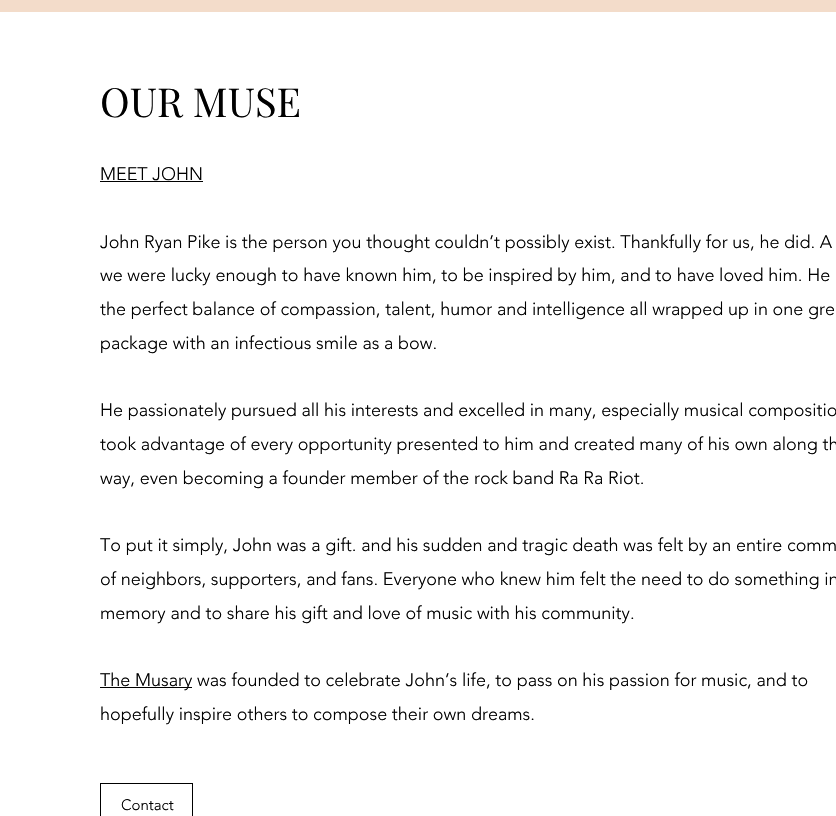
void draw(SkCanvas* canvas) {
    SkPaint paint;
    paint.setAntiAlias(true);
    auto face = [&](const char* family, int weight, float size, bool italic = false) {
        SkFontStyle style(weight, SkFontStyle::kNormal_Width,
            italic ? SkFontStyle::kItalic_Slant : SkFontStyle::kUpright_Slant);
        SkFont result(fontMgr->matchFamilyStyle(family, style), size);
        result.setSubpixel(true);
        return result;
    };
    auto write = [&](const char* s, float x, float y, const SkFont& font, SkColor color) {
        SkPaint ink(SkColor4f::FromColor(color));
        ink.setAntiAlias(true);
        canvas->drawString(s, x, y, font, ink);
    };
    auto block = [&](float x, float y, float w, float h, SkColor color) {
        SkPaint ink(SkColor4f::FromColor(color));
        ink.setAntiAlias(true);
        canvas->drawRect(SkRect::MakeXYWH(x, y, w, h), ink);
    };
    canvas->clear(SkColorSetRGB(243, 220, 202));
    block(0, 12, 836, 804, SK_ColorWHITE);
    auto kFont1 = face("Playfair Display", 400, 40);
    write("OUR MUSE", 100, 117, kFont1, SK_ColorBLACK);
    auto kFont2 = face("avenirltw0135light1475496", 300, 18);
    write("MEET JOHN", 100, 180, kFont2, SK_ColorBLACK);
    block(100, 181, 103, 1, SK_ColorBLACK);
    write("John Ryan Pike is the person you thought couldn’t possibly exist. Thankfully for us, he did. A", 100, 248, kFont2, SK_ColorBLACK);
    write("we were lucky enough to have known him, to be inspired by him, and to have loved him. He", 100, 281, kFont2, SK_ColorBLACK);
    write("the perfect balance of compassion, talent, humor and intelligence all wrapped up in one gre", 100, 315, kFont2, SK_ColorBLACK);
    write("package with an infectious smile as a bow.", 100, 349, kFont2, SK_ColorBLACK);
    write("He passionately pursued all his interests and excelled in many, especially musical compositio", 100, 416, kFont2, SK_ColorBLACK);
    write("took advantage of every opportunity presented to him and created many of his own along th", 100, 450, kFont2, SK_ColorBLACK);
    write("way, even becoming a founder member of the rock band Ra Ra Riot.", 100, 484, kFont2, SK_ColorBLACK);
    write("To put it simply, John was a gift. and his sudden and tragic death was felt by an entire comm", 100, 551, kFont2, SK_ColorBLACK);
    write("of neighbors, supporters, and fans. Everyone who knew him felt the need to do something in", 100, 585, kFont2, SK_ColorBLACK);
    write("memory and to share his gift and love of music with his community.", 100, 619, kFont2, SK_ColorBLACK);
    block(100, 687, 92, 1, SK_ColorBLACK);
    write("The Musary was founded to celebrate John’s life, to pass on his passion for music, and to", 100, 686, kFont2, SK_ColorBLACK);
    write("hopefully inspire others to compose their own dreams.", 100, 720, kFont2, SK_ColorBLACK);
    paint.setStyle(SkPaint::kStroke_Style);
    paint.setStrokeWidth(1);
    paint.setColor(SK_ColorBLACK);
    canvas->drawRect(SkRect::MakeXYWH(100.5f, 783.5f, 92, 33), paint);
    auto kFont3 = face("avenirltw0135light1475496", 300, 15);
    write("Contact", 121, 810, kFont3, SK_ColorBLACK);
}
